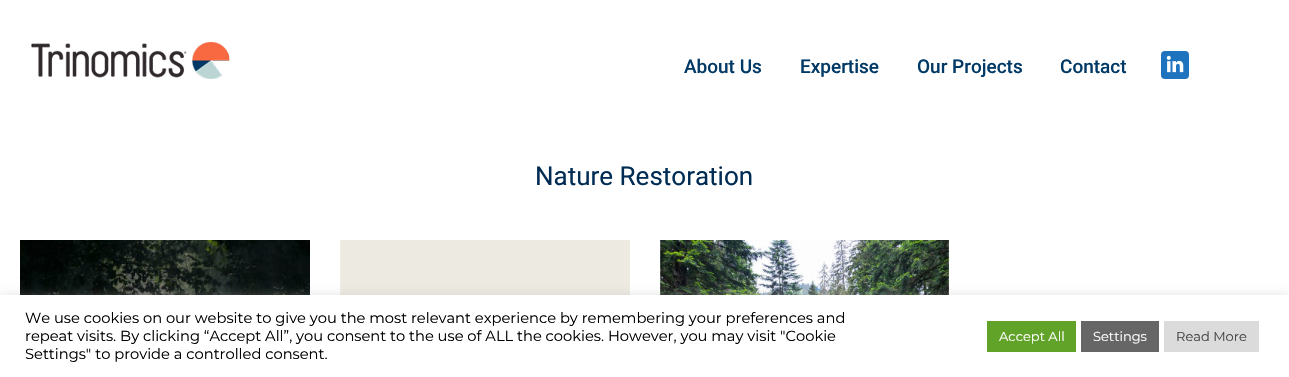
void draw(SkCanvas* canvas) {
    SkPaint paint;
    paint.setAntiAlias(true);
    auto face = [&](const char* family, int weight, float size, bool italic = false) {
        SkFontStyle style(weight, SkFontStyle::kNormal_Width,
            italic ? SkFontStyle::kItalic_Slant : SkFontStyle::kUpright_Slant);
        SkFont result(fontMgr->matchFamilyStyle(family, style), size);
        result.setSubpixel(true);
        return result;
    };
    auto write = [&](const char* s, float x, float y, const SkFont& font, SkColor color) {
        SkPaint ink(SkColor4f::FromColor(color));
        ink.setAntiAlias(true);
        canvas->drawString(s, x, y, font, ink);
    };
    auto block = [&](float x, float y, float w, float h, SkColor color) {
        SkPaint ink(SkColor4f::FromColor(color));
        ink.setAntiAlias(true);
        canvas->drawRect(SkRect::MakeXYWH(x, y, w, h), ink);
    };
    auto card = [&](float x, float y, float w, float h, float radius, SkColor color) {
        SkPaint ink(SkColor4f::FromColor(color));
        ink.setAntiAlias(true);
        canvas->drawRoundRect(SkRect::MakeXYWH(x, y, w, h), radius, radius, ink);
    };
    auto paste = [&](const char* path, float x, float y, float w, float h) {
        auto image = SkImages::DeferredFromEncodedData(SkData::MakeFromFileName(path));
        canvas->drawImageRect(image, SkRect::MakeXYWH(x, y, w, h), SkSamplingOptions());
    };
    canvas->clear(SK_ColorWHITE);
    paste("pic1.png", 31, 42, 199, 37);
    auto kFont1 = face("Roboto", 500, 19);
    write("About Us", 684, 73, kFont1, SkColorSetRGB(0, 57, 101));
    write("Expertise", 800, 73, kFont1, SkColorSetRGB(0, 57, 101));
    write("Our Projects", 917, 73, kFont1, SkColorSetRGB(0, 57, 101));
    write("Contact", 1060, 73, kFont1, SkColorSetRGB(0, 57, 101));
    card(1161, 51, 28, 28, 4, SkColorSetRGB(30, 115, 190));
    paste("pic2.png", 1166, 55, 18, 18);
    auto kFont2 = face("Roboto", 400, 26);
    write("Nature Restoration", 535, 185, kFont2, SkColorSetRGB(0, 44, 84));
    paste("pic3.png", 20, 240, 290, 55);
    paste("pic4.png", 340, 240, 290, 55);
    paste("pic5.png", 660, 240, 289, 55);
    paint.setColor(SkColorSetARGB(77, 172, 171, 171));
    paint.setMaskFilter(SkMaskFilter::MakeBlur(kNormal_SkBlurStyle, 5));
    canvas->drawRect(SkRect::MakeXYWH(0, 294, 1289, 82), paint);
    paint.setMaskFilter(nullptr);
    block(0, 295, 1289, 82, SK_ColorWHITE);
    auto kFont3 = face("Montserrat", 400, 14.67f);
    write("We use cookies on our website to give you the most relevant experience by remembering your preferences and", 25, 323, kFont3, SK_ColorBLACK);
    write("repeat visits. By clicking “Accept All”, you consent to the use of ALL the cookies. However, you may visit \"Cookie", 25, 341, kFont3, SK_ColorBLACK);
    write("Settings\" to provide a controlled consent.", 25, 359, kFont3, SK_ColorBLACK);
    block(987, 321, 89, 31, SkColorSetRGB(97, 162, 41));
    auto kFont4 = face("Montserrat", 400, 13);
    write("Accept All", 999, 341, kFont4, SK_ColorWHITE);
    block(1081, 321, 78, 31, SkColorSetRGB(102, 102, 102));
    write("Settings", 1093, 341, kFont4, SK_ColorWHITE);
    block(1164, 321, 95, 31, SkColorSetRGB(219, 219, 219));
    write("Read More", 1176, 341, kFont4, SkColorSetRGB(68, 68, 68));
}
